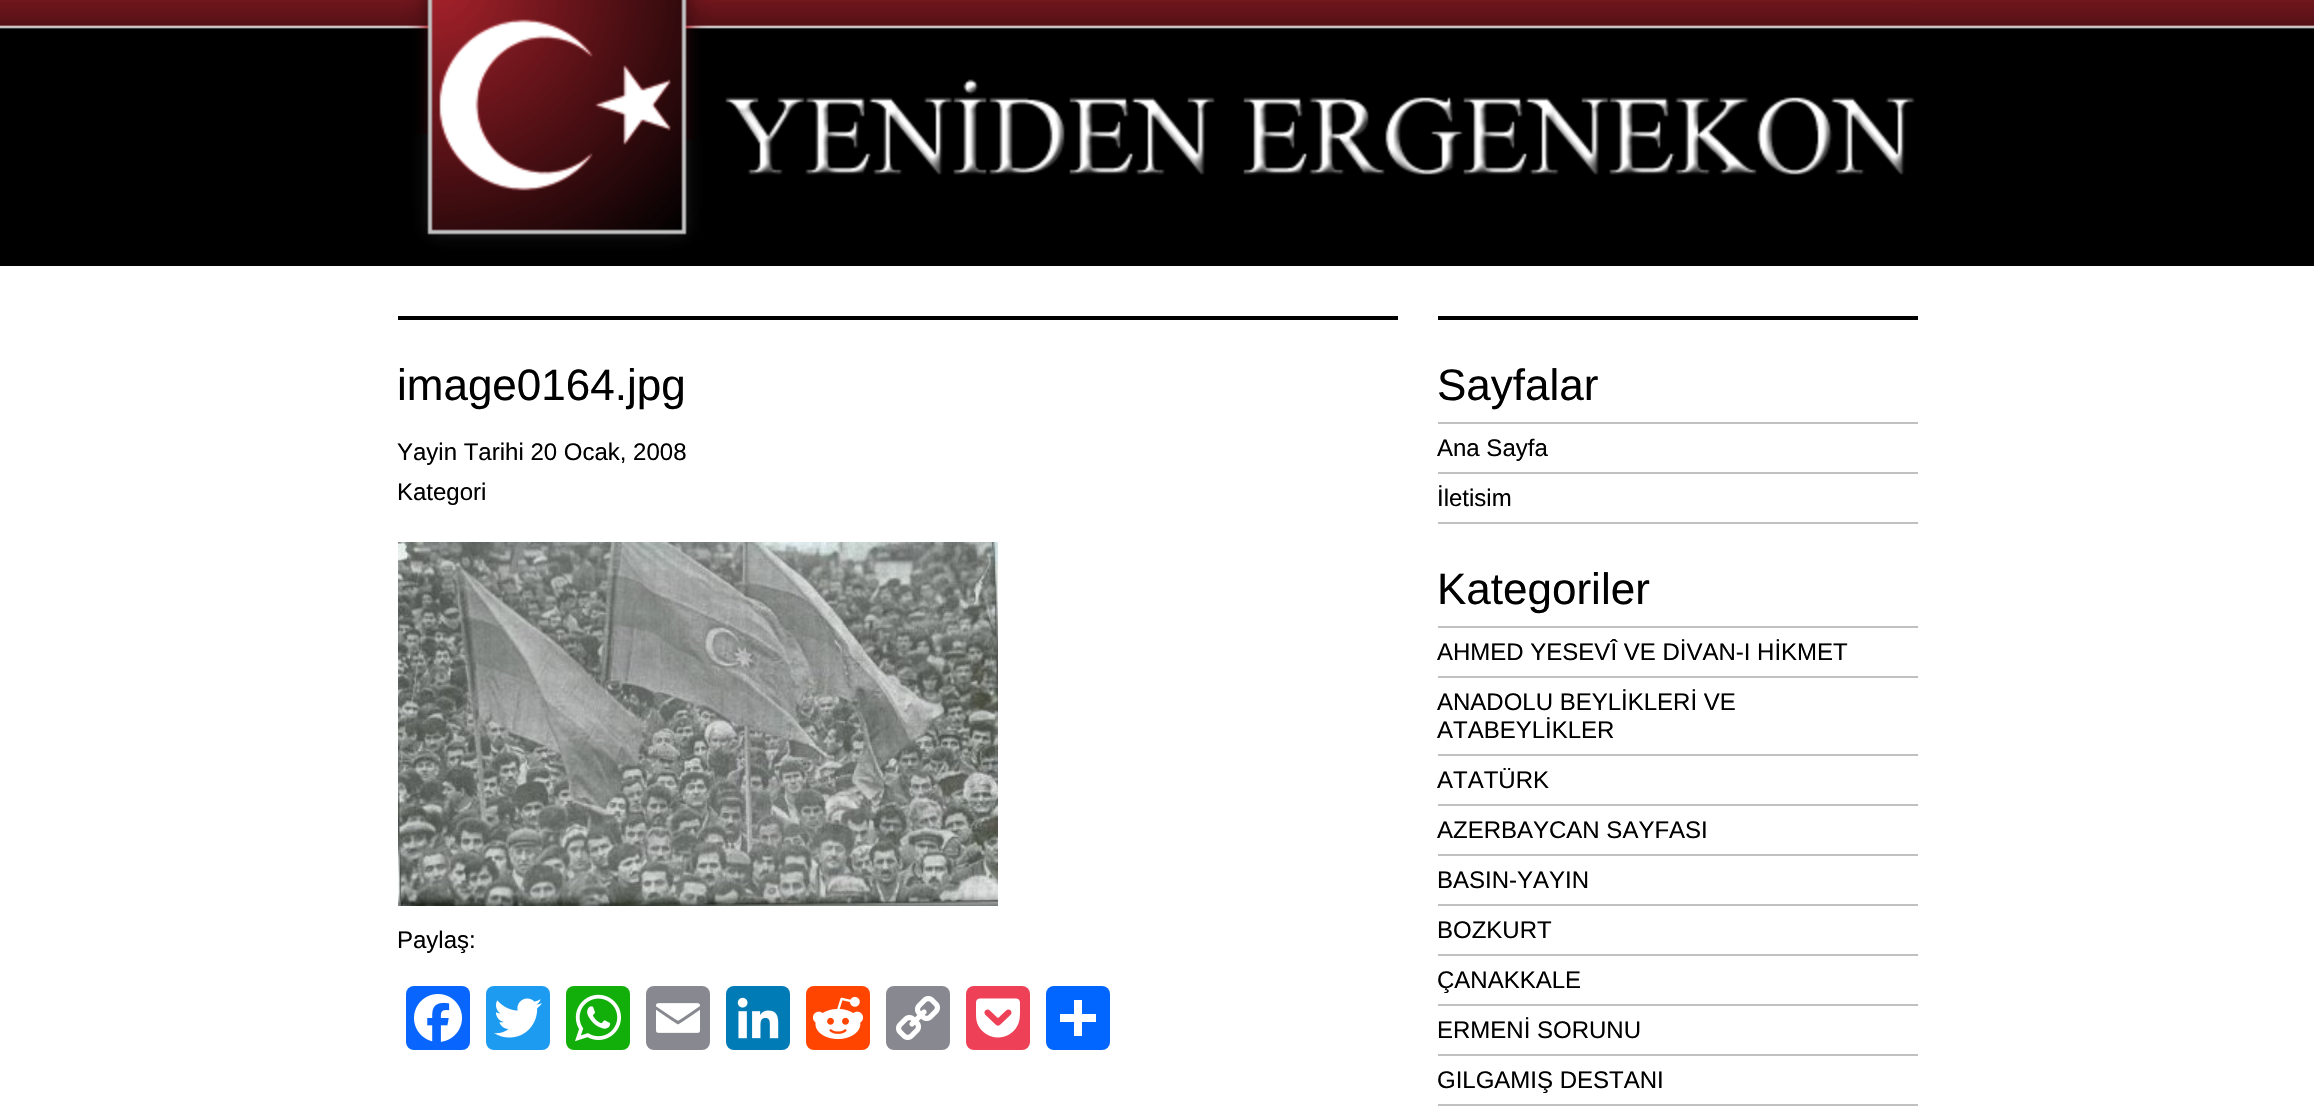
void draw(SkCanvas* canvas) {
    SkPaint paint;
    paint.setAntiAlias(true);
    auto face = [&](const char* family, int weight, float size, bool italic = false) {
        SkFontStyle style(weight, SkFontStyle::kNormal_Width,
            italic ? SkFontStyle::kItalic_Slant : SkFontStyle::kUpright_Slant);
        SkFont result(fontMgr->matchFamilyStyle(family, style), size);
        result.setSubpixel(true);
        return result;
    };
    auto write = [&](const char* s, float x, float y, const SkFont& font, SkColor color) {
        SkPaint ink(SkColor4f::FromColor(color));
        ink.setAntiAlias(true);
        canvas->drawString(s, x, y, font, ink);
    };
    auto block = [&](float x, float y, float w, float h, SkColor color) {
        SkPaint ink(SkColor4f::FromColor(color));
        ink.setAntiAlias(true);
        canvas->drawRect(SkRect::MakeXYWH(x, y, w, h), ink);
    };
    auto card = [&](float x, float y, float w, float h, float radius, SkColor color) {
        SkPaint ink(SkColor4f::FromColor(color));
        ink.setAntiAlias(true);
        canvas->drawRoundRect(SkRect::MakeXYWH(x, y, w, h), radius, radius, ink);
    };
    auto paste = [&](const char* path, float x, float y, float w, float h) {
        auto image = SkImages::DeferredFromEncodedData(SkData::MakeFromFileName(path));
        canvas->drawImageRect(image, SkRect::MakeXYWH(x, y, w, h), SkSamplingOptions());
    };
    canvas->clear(SK_ColorWHITE);
    paste("pic1.png", 0, 0, 2314, 266);
    paste("pic2.png", 718, 0, 1200, 266);
    paste("pic3.png", 398, 0, 320, 266);
    block(398, 316, 1000, 4, SK_ColorBLACK);
    auto kFont1 = face("Liberation Sans", 400, 44);
    write("image0164.jpg", 397, 400, kFont1, SK_ColorBLACK);
    auto kFont2 = face("Liberation Sans", 400, 24);
    write("Yayin Tarihi 20 Ocak, 2008", 397, 460, kFont2, SK_ColorBLACK);
    write("Kategori", 397, 500, kFont2, SK_ColorBLACK);
    paste("pic4.png", 398, 542, 600, 364);
    write("Paylaş:", 397, 948, kFont2, SK_ColorBLACK);
    card(406, 986, 64, 64, 8, SkColorSetRGB(8, 102, 255));
    paste("pic5.png", 414, 994, 48, 48);
    card(486, 986, 64, 64, 8, SkColorSetRGB(29, 155, 240));
    paste("pic6.png", 494, 998, 48, 40);
    card(566, 986, 64, 64, 8, SkColorSetRGB(18, 175, 10));
    paste("pic7.png", 575, 994, 46, 48);
    card(646, 986, 64, 64, 8, SkColorSetRGB(136, 137, 144));
    paste("pic8.png", 656, 1003, 44, 30);
    card(726, 986, 64, 64, 8, SkColorSetRGB(0, 123, 181));
    paste("pic9.png", 737, 997, 42, 42);
    card(806, 986, 64, 64, 8, SkColorSetRGB(255, 69, 0));
    paste("pic10.png", 812, 996, 52, 44);
    card(886, 986, 64, 64, 8, SkColorSetRGB(136, 137, 144));
    paste("pic11.png", 896, 996, 44, 44);
    card(966, 986, 64, 64, 8, SkColorSetRGB(238, 64, 86));
    paste("pic12.png", 976, 998, 44, 40);
    card(1046, 986, 64, 64, 8, SkColorSetRGB(1, 102, 255));
    block(1074, 1000, 8, 36, SK_ColorWHITE);
    block(1060, 1014, 36, 8, SK_ColorWHITE);
    block(1438, 316, 480, 4, SK_ColorBLACK);
    block(1438, 422, 480, 2, SkColorSetRGB(192, 192, 192));
    write("Sayfalar", 1437, 400, kFont1, SK_ColorBLACK);
    block(1438, 472, 480, 2, SkColorSetRGB(192, 192, 192));
    write("Ana Sayfa", 1437, 456, kFont2, SK_ColorBLACK);
    block(1438, 522, 480, 2, SkColorSetRGB(192, 192, 192));
    write("İletisim", 1437, 506, kFont2, SK_ColorBLACK);
    block(1438, 626, 480, 2, SkColorSetRGB(192, 192, 192));
    write("Kategoriler", 1437, 604, kFont1, SK_ColorBLACK);
    block(1438, 676, 480, 2, SkColorSetRGB(192, 192, 192));
    write("AHMED YESEVÎ VE DİVAN-I HİKMET", 1437, 660, kFont2, SK_ColorBLACK);
    block(1438, 754, 480, 2, SkColorSetRGB(192, 192, 192));
    write("ANADOLU BEYLİKLERİ VE", 1437, 710, kFont2, SK_ColorBLACK);
    write("ATABEYLİKLER", 1437, 738, kFont2, SK_ColorBLACK);
    block(1438, 804, 480, 2, SkColorSetRGB(192, 192, 192));
    write("ATATÜRK", 1437, 788, kFont2, SK_ColorBLACK);
    block(1438, 854, 480, 2, SkColorSetRGB(192, 192, 192));
    write("AZERBAYCAN SAYFASI", 1437, 838, kFont2, SK_ColorBLACK);
    block(1438, 904, 480, 2, SkColorSetRGB(192, 192, 192));
    write("BASIN-YAYIN", 1437, 888, kFont2, SK_ColorBLACK);
    block(1438, 954, 480, 2, SkColorSetRGB(192, 192, 192));
    write("BOZKURT", 1437, 938, kFont2, SK_ColorBLACK);
    block(1438, 1004, 480, 2, SkColorSetRGB(192, 192, 192));
    write("ÇANAKKALE", 1437, 988, kFont2, SK_ColorBLACK);
    block(1438, 1054, 480, 2, SkColorSetRGB(192, 192, 192));
    write("ERMENİ SORUNU", 1437, 1038, kFont2, SK_ColorBLACK);
    block(1438, 1104, 480, 2, SkColorSetRGB(192, 192, 192));
    write("GILGAMIŞ DESTANI", 1437, 1088, kFont2, SK_ColorBLACK);
}
